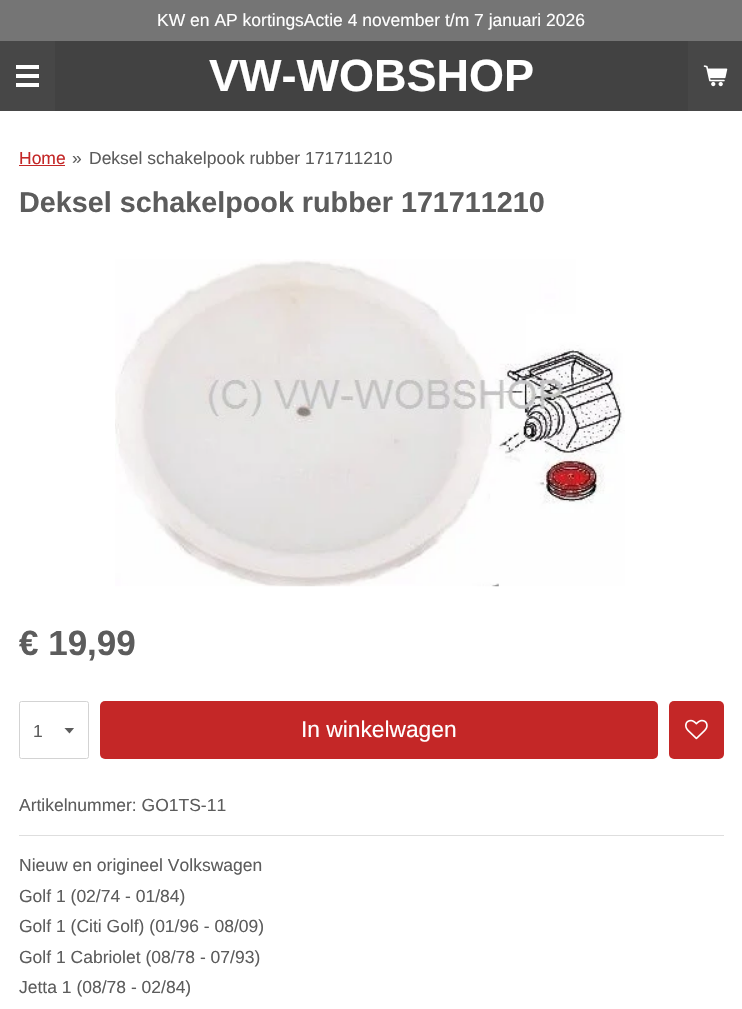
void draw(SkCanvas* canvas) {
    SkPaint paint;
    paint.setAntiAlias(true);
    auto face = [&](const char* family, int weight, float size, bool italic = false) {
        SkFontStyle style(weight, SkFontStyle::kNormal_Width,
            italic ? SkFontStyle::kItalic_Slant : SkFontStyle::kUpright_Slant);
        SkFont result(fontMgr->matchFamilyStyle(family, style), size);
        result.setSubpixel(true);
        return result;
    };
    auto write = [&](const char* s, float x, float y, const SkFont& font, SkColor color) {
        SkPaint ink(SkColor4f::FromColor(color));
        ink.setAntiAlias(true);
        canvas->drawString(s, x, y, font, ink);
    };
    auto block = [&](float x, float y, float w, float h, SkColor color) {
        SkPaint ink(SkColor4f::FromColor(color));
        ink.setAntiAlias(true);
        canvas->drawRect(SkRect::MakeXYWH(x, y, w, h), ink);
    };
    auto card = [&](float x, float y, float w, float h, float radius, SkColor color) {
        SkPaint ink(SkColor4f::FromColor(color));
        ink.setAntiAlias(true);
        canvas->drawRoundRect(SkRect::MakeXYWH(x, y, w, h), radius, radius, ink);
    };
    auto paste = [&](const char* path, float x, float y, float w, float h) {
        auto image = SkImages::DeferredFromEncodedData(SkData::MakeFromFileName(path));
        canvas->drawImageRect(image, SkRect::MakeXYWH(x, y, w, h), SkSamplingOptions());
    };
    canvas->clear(SkColorSetRGB(66, 66, 66));
    block(0, 0, 742, 41, SkColorSetRGB(117, 117, 117));
    auto kFont1 = face("Liberation Sans", 400, 17.5f);
    write("KW en AP kortingsActie 4 november t/m 7 januari 2026", 157, 26, kFont1, SK_ColorWHITE);
    block(0, 41, 55, 70, SkColorSetRGB(71, 71, 71));
    block(16, 74, 23, 4, SK_ColorWHITE);
    block(16, 65, 23, 4, SK_ColorWHITE);
    block(16, 83, 23, 4, SK_ColorWHITE);
    auto kFont2 = face("Liberation Sans", 700, 45);
    write("VW-WOBSHOP", 209, 91, kFont2, SK_ColorWHITE);
    block(688, 41, 54, 70, SkColorSetRGB(71, 71, 71));
    paste("pic1.png", 703, 65, 25, 22);
    block(0, 111, 742, 898, SK_ColorWHITE);
    write("Home", 19, 164, kFont1, SkColorSetRGB(196, 39, 39));
    block(19, 165, 46, 1, SkColorSetRGB(196, 39, 39));
    write("»", 72, 164, kFont1, SkColorSetRGB(92, 92, 92));
    write("Deksel schakelpook rubber 171711210", 89, 164, kFont1, SkColorSetRGB(92, 92, 92));
    auto kFont3 = face("Liberation Sans", 700, 28.75f);
    write("Deksel schakelpook rubber 171711210", 19, 212, kFont3, SkColorSetRGB(92, 92, 92));
    paste("pic2.png", 115, 259, 510, 328);
    auto kFont4 = face("Liberation Sans", 700, 35);
    write("€ 19,99", 19, 655, kFont4, SkColorSetRGB(92, 92, 92));
    canvas->save();
    canvas->clipRect(SkRect::MakeXYWH(64, 728, 11, 6));
    paint.setColor(SkColorSetRGB(92, 92, 92));
    canvas->drawPath(SkPathBuilder().moveTo(69.5f, 733.5f).lineTo(64, 727.5f).lineTo(74.5f, 727.5f).close().detach(), paint);
    canvas->restore();
    paint.setStyle(SkPaint::kStroke_Style);
    paint.setStrokeWidth(1);
    paint.setColor(SkColorSetRGB(211, 211, 211));
    canvas->drawRoundRect(SkRect::MakeXYWH(19.5f, 701.5f, 69, 57), 2, 2, paint);
    write("1", 33, 737, kFont1, SkColorSetRGB(92, 92, 92));
    card(100, 701, 558, 58, 5, SkColorSetRGB(196, 39, 39));
    auto kFont5 = face("Liberation Sans", 400, 22.75f);
    write("In winkelwagen", 301, 737, kFont5, SK_ColorWHITE);
    card(669, 701, 55, 58, 5, SkColorSetRGB(196, 39, 39));
    paste("pic3.png", 685, 719, 23, 21);
    write("Artikelnummer: GO1TS-11", 19, 811, kFont1, SkColorSetRGB(92, 92, 92));
    block(19, 835, 705, 1, SkColorSetRGB(222, 222, 222));
    write("Nieuw en origineel Volkswagen", 19, 871, kFont1, SkColorSetRGB(92, 92, 92));
    write("Golf 1 (02/74 - 01/84)", 19, 902, kFont1, SkColorSetRGB(92, 92, 92));
    write("Golf 1 (Citi Golf) (01/96 - 08/09)", 19, 932, kFont1, SkColorSetRGB(92, 92, 92));
    write("Golf 1 Cabriolet (08/78 - 07/93)", 19, 963, kFont1, SkColorSetRGB(92, 92, 92));
    write("Jetta 1 (08/78 - 02/84)", 19, 993, kFont1, SkColorSetRGB(92, 92, 92));
}
